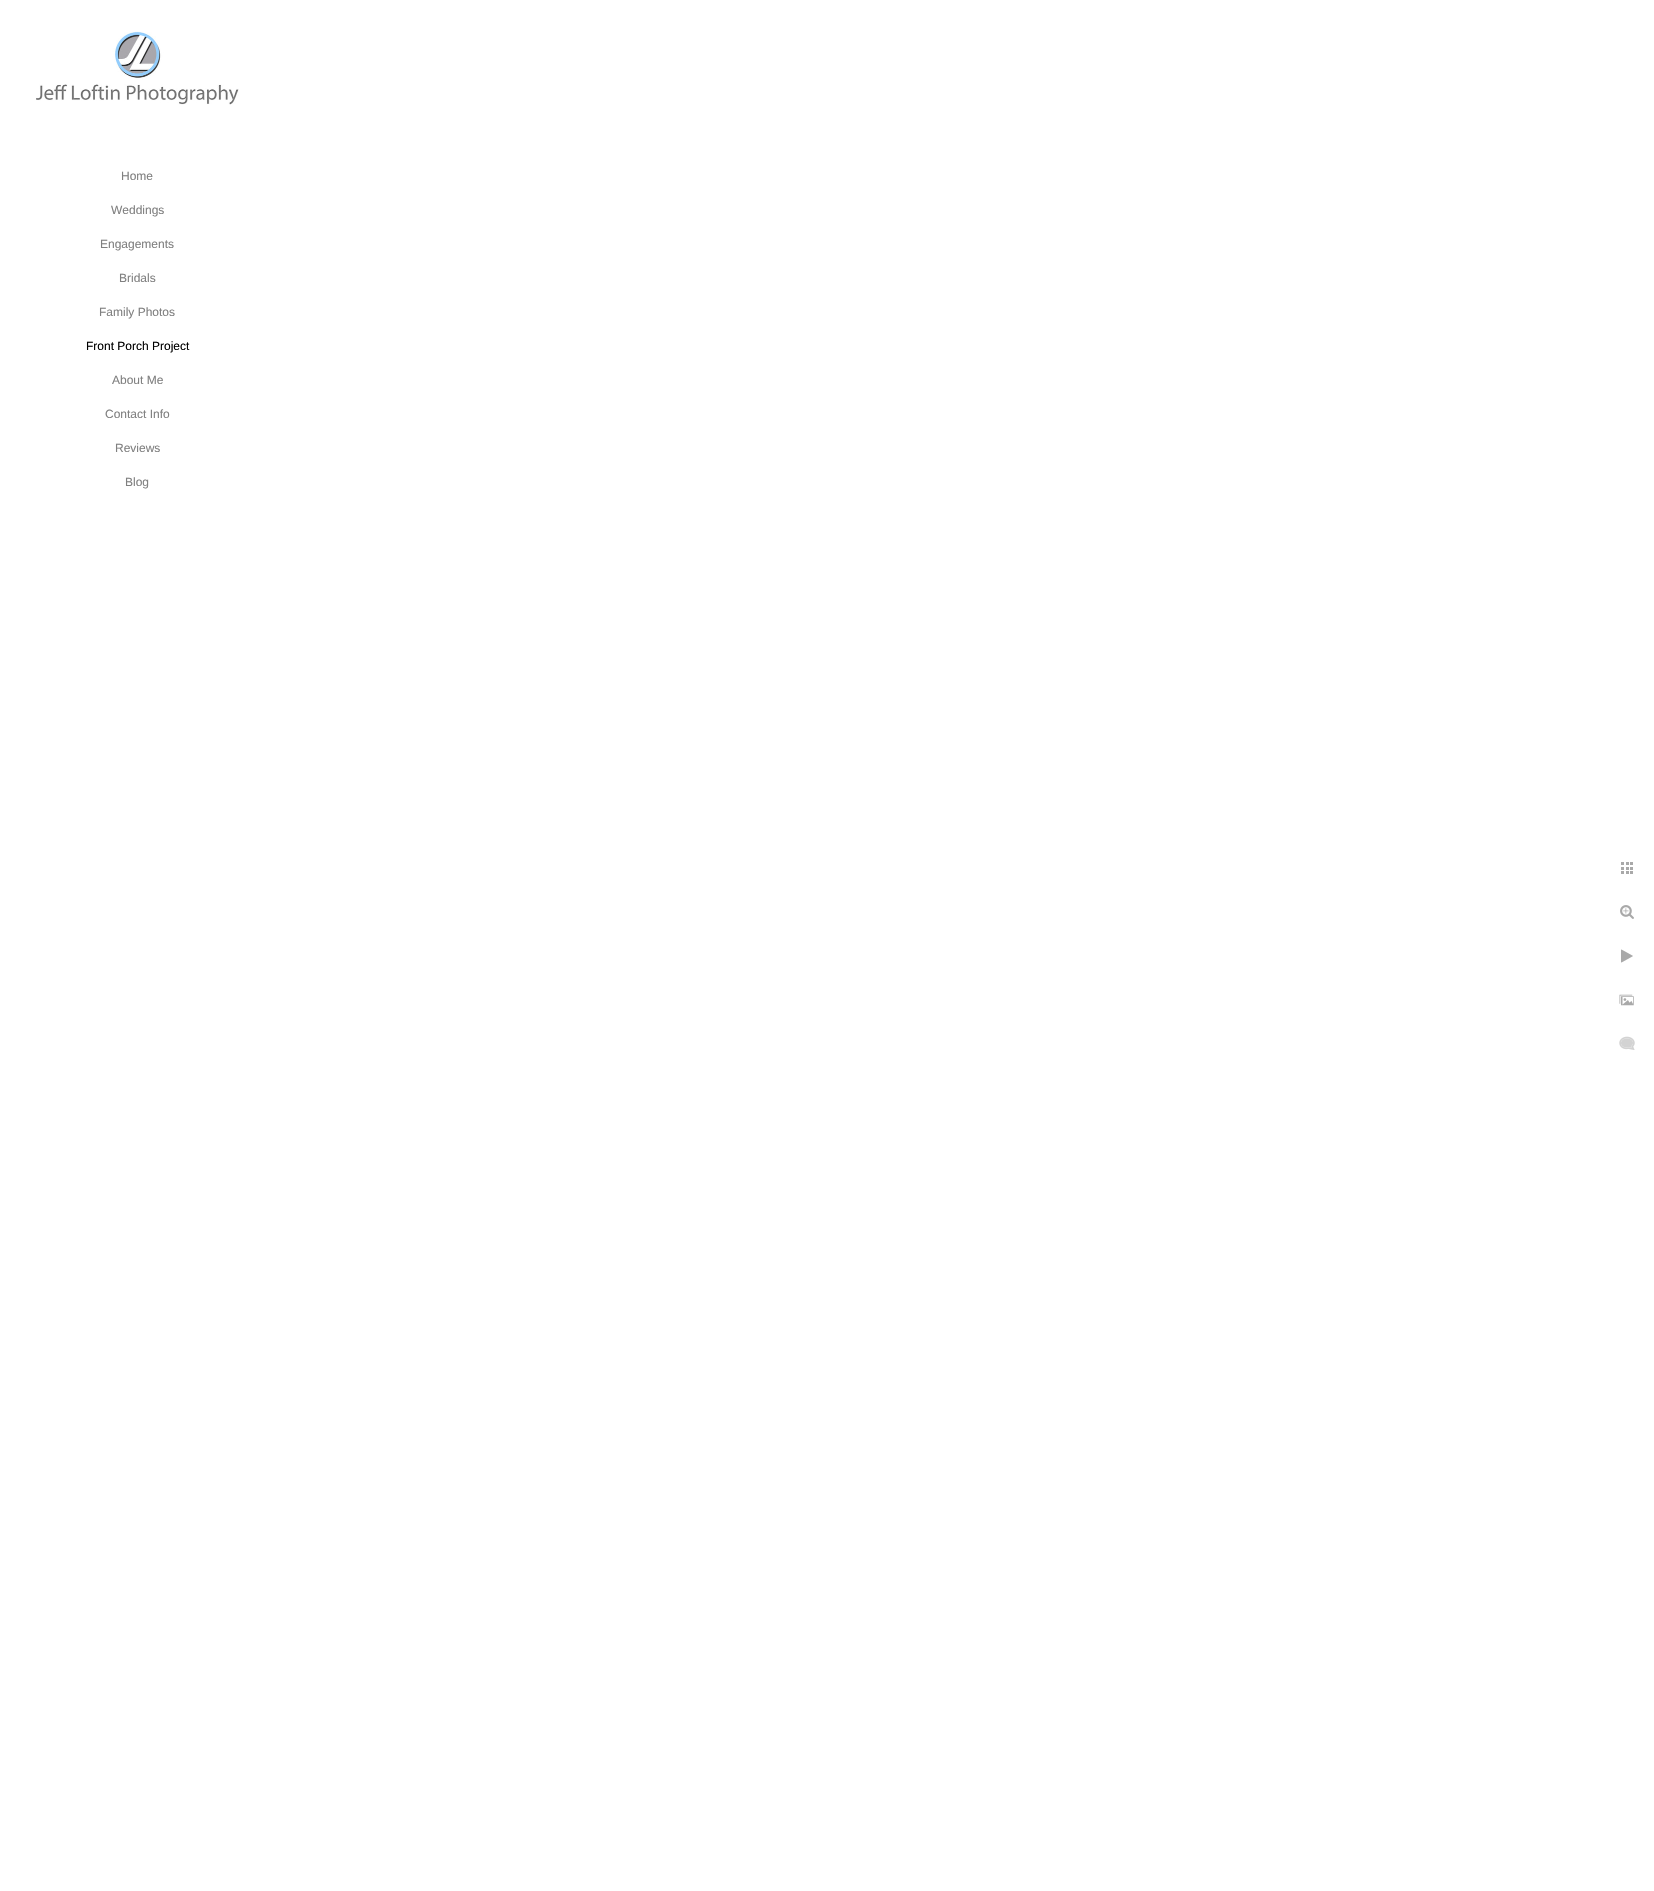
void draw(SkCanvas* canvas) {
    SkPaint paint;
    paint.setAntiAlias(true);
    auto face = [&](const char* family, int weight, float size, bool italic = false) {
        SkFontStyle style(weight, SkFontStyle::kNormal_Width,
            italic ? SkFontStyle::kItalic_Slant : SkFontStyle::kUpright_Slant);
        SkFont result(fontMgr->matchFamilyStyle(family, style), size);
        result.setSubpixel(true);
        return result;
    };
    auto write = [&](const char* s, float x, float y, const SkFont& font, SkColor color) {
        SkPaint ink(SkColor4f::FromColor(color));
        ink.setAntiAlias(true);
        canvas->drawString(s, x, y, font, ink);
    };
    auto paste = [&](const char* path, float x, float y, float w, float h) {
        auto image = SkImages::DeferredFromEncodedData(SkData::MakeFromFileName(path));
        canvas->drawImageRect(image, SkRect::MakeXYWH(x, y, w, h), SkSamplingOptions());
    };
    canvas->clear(SK_ColorWHITE);
    paste("pic1.png", 36, 31, 203, 74);
    auto kFont1 = face("Liberation Sans", 400, 12);
    write("Home", 121, 180, kFont1, SkColorSetRGB(128, 128, 128));
    write("Weddings", 111, 214, kFont1, SkColorSetRGB(128, 128, 128));
    write("Engagements", 100, 248, kFont1, SkColorSetRGB(128, 128, 128));
    write("Bridals", 119, 282, kFont1, SkColorSetRGB(128, 128, 128));
    write("Family Photos", 99, 316, kFont1, SkColorSetRGB(128, 128, 128));
    write("Front Porch Project", 86, 350, kFont1, SK_ColorBLACK);
    write("About Me", 112, 384, kFont1, SkColorSetRGB(128, 128, 128));
    write("Contact Info", 105, 418, kFont1, SkColorSetRGB(128, 128, 128));
    write("Reviews", 115, 452, kFont1, SkColorSetRGB(128, 128, 128));
    write("Blog", 125, 486, kFont1, SkColorSetRGB(128, 128, 128));
    paste("pic2.png", 1621, 862, 12, 12);
    paste("pic3.png", 1620, 905, 14, 14);
    paste("pic4.png", 1621, 949, 12, 14);
    paste("pic5.png", 1619, 994, 15, 12);
    paste("pic6.png", 1619, 1036, 16, 14);
}
